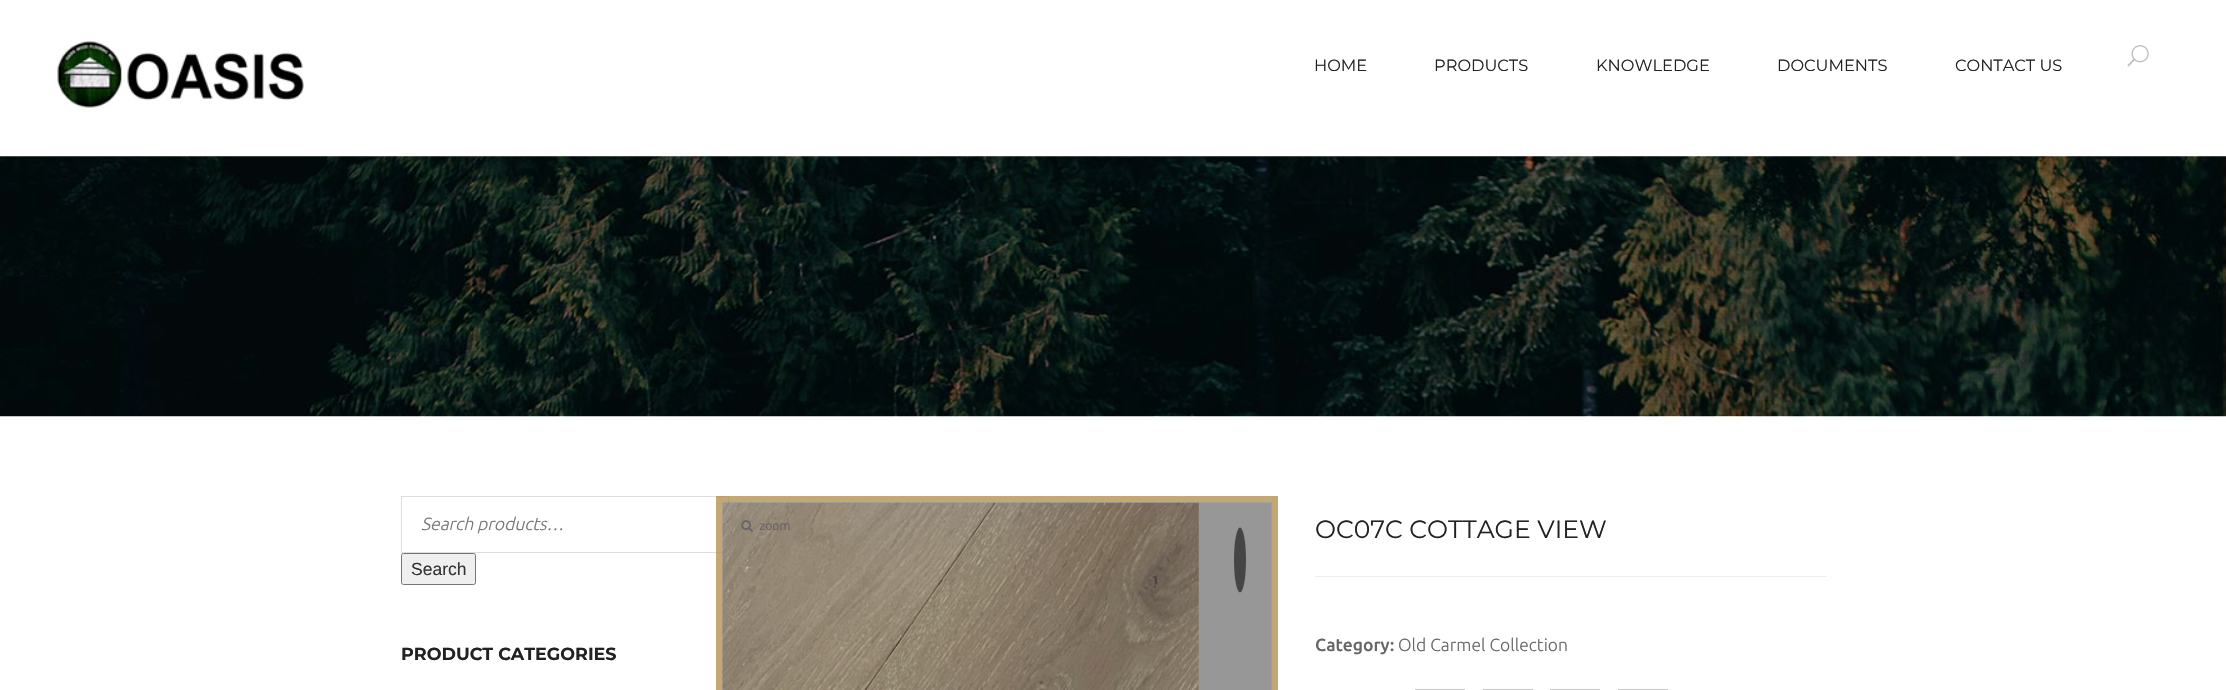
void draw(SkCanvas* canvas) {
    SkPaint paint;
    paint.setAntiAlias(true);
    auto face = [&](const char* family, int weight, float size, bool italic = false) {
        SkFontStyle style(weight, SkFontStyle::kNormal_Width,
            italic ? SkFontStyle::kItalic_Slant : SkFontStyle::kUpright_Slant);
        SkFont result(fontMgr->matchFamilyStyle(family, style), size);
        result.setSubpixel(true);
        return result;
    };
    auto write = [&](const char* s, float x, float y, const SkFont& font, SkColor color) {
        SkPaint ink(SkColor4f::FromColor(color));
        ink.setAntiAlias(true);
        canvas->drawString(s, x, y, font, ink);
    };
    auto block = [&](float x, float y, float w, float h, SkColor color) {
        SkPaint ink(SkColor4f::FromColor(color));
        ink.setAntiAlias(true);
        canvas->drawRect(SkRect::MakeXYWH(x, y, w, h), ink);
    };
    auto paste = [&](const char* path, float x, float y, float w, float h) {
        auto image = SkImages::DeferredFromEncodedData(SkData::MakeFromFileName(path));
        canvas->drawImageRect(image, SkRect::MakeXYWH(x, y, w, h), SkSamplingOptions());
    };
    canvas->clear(SK_ColorWHITE);
    paste("pic1.png", 57, 41, 247, 67);
    auto kFont1 = face("Montserrat", 400, 16.25f);
    write("HOME", 1314, 71, kFont1, SkColorSetRGB(34, 34, 34));
    write("PRODUCTS", 1434, 71, kFont1, SkColorSetRGB(34, 34, 34));
    write("KNOWLEDGE", 1596, 71, kFont1, SkColorSetRGB(34, 34, 34));
    write("DOCUMENTS", 1777, 71, kFont1, SkColorSetRGB(34, 34, 34));
    write("CONTACT US", 1955, 71, kFont1, SkColorSetRGB(34, 34, 34));
    paste("pic2.png", 2127, 45, 22, 22);
    paste("pic3.png", 0, 156, 2226, 261);
    paste("pic4.png", 300, 156, 1925, 260);
    paint.setStyle(SkPaint::kStroke_Style);
    paint.setStrokeWidth(1);
    paint.setColor(SkColorSetRGB(222, 222, 222));
    canvas->drawRect(SkRect::MakeXYWH(401.5f, 496.5f, 327, 56), paint);
    auto kFont2 = face("Ubuntu", 300, 17.5f, true);
    write("Search products…", 421, 530, kFont2, SkColorSetRGB(117, 117, 117));
    paint.setStyle(SkPaint::kFill_Style);
    paint.setColor(SkColorSetRGB(239, 239, 239));
    canvas->drawRoundRect(SkRect::MakeXYWH(401.5f, 553.5f, 74, 31), 2, 2, paint);
    paint.setStyle(SkPaint::kStroke_Style);
    paint.setColor(SkColorSetRGB(118, 118, 118));
    canvas->drawRoundRect(SkRect::MakeXYWH(401.5f, 553.5f, 74, 31), 2, 2, paint);
    auto kFont3 = face("Liberation Sans", 400, 17.5f);
    write("Search", 411, 575, kFont3, SkColorSetRGB(51, 51, 51));
    auto kFont4 = face("Montserrat", 700, 17.5f);
    write("PRODUCT CATEGORIES", 401, 660, kFont4, SkColorSetRGB(34, 34, 34));
    block(716, 496, 562, 194, SkColorSetARGB(128, 66, 66, 66));
    paint.setStrokeWidth(6);
    paint.setColor(SkColorSetARGB(128, 229, 174, 73));
    canvas->drawRect(SkRect::MakeXYWH(719, 499, 556, 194), paint);
    paste("pic5.png", 722, 502, 477, 188);
    block(723, 503, 548, 187, SkColorSetARGB(26, 66, 66, 66));
    paste("pic6.png", 741, 520, 12, 12);
    auto kFont5 = face("Roboto", 400, 12.5f);
    write("zoom", 759, 530, kFont5, SkColorSetRGB(102, 102, 102));
    paint.setStyle(SkPaint::kFill_Style);
    paint.setColor(SkColorSetRGB(69, 69, 69));
    canvas->drawOval(SkRect::MakeXYWH(1234, 527.5f, 12, 65), paint);
    auto kFont6 = face("Montserrat", 400, 25);
    write("OC07C COTTAGE VIEW", 1315, 538, kFont6, SkColorSetRGB(34, 34, 34));
    block(1315, 576, 511, 1, SkColorSetRGB(237, 237, 237));
    auto kFont7 = face("Ubuntu", 500, 17.5f);
    write("Category:", 1315, 651, kFont7, SkColorSetRGB(102, 102, 102));
    auto kFont8 = face("Ubuntu", 300, 17.5f);
    write("Old Carmel Collection", 1398, 651, kFont8, SkColorSetRGB(102, 102, 102));
    block(1415, 689, 50, 1, SkColorSetRGB(199, 199, 199));
    block(1483, 689, 50, 1, SkColorSetRGB(199, 199, 199));
    block(1550, 689, 50, 1, SkColorSetRGB(199, 199, 199));
    block(1618, 689, 50, 1, SkColorSetRGB(199, 199, 199));
}
